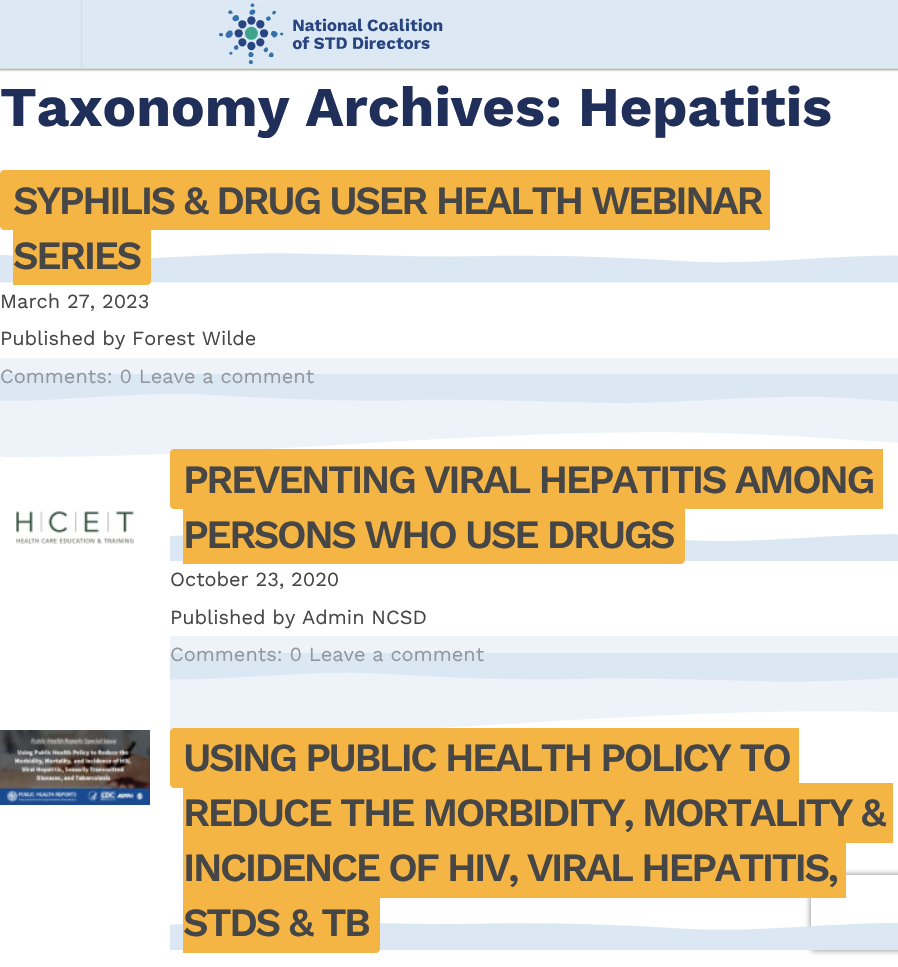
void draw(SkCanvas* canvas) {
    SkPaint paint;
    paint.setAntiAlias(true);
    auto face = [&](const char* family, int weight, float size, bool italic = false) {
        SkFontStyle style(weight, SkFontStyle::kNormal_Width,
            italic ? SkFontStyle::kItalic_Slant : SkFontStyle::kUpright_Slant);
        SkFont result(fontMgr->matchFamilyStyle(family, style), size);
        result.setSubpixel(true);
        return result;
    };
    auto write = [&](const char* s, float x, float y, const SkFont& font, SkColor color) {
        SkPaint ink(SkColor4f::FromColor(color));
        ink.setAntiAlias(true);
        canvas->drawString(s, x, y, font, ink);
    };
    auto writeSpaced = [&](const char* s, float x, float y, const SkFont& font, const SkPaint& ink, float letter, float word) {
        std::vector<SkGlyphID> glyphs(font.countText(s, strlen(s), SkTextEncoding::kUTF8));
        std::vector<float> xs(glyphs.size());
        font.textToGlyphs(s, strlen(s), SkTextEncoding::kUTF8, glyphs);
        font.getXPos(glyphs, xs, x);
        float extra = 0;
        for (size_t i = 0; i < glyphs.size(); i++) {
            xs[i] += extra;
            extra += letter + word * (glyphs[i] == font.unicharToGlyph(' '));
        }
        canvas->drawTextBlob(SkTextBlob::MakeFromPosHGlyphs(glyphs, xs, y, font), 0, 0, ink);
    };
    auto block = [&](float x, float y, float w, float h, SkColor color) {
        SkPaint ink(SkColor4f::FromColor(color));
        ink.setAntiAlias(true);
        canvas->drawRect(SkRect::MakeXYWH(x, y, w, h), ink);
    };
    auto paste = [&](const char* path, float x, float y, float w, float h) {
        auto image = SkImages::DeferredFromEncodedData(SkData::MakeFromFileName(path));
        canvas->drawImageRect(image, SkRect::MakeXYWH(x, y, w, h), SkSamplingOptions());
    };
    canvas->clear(SK_ColorWHITE);
    canvas->save();
    canvas->clipRect(SkRect::MakeXYWH(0, 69, 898, 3));
    paint.setColor(SkColorSetARGB(102, 0, 0, 0));
    paint.setMaskFilter(SkMaskFilter::MakeBlur(kNormal_SkBlurStyle, 1));
    canvas->drawRect(SkRect::MakeXYWH(-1, -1, 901, 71), paint);
    paint.setMaskFilter(nullptr);
    canvas->restore();
    block(0, 0, 898, 68, SkColorSetARGB(250, 219, 232, 243));
    block(0, 68, 898, 1, SkColorSetRGB(218, 218, 218));
    block(81, 0, 1, 69, SkColorSetRGB(218, 218, 218));
    paste("pic1.png", 219, 3, 224, 62);
    auto kFont1 = face("Work Sans", 700, 56.25f);
    write("Taxonomy Archives: Hepatitis", 0, 126, kFont1, SkColorSetRGB(32, 47, 90));
    paint.setColor(SkColorSetRGB(245, 181, 68));
    canvas->drawPath(SkPathBuilder().moveTo(4, 170).lineTo(761, 170).lineTo(761, 230).lineTo(4, 230).cubicTo(2, 230, 0, 228, 0, 226).lineTo(0, 174).cubicTo(0, 172, 2, 170, 4, 170).close().detach(), paint);
    block(761, 170, 9, 60, SkColorSetRGB(245, 181, 68));
    auto kFont2 = face("Work Sans", 600, 40);
    paint.setColor(SkColorSetRGB(70, 70, 70));
    writeSpaced("SYPHILIS & DRUG USER HEALTH WEBINAR", 13, 214, kFont2, paint, -2.5f, 0);
    paste("pic3.png", 0, 253, 898, 30);
    paint.setColor(SkColorSetRGB(245, 181, 68));
    canvas->drawPath(SkPathBuilder().moveTo(13, 225).lineTo(147, 225).cubicTo(149, 225, 151, 227, 151, 229).lineTo(151, 281).cubicTo(151, 283, 149, 285, 147, 285).lineTo(13, 285).close().detach(), paint);
    paint.setColor(SkColorSetRGB(70, 70, 70));
    writeSpaced("SERIES", 13, 269, kFont2, paint, -2.5f, 0);
    paste("pic2.png", 0, 374, 898, 29);
    auto kFont3 = face("Work Sans", 400, 20);
    write("March 27, 2023", 0, 308, kFont3, SkColorSetRGB(70, 70, 70));
    write("Published by Forest Wilde", 0, 345, kFont3, SkColorSetRGB(70, 70, 70));
    write("Comments: 0 Leave a comment", 0, 383, kFont3, SkColorSetRGB(70, 70, 70));
    canvas->save();
    canvas->clipRect(SkRect::MakeXYWH(0, 358, 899, 125));
    paint.setColor(SkColorSetARGB(128, 219, 232, 243));
    canvas->drawPath(SkPathBuilder().moveTo(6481, 357).lineTo(0, 357).lineTo(0, 456).cubicTo(0, 458, 24, 457, 27, 457).cubicTo(288, 457, 546, 419, 808, 437).cubicTo(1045, 453, 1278, 460, 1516, 455).cubicTo(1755, 451, 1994, 460, 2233, 465).cubicTo(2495, 470, 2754, 440, 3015, 443).cubicTo(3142, 445, 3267, 459, 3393, 464).cubicTo(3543, 471, 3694, 468, 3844, 466).cubicTo(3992, 464, 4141, 467, 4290, 462).cubicTo(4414, 457, 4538, 445, 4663, 444).cubicTo(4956, 440, 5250, 428, 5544, 438).cubicTo(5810, 446, 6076, 449, 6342, 454).lineTo(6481, 455).close().detach(), paint);
    canvas->restore();
    paste("pic4.png", 16, 511, 118, 33);
    paint.setColor(SkColorSetRGB(245, 181, 68));
    canvas->drawPath(SkPathBuilder().moveTo(174, 449).lineTo(873, 449).lineTo(873, 509).lineTo(174, 509).cubicTo(172, 509, 170, 507, 170, 505).lineTo(170, 453).cubicTo(170, 451, 172, 449, 174, 449).close().detach(), paint);
    paint.setColor(SkColorSetRGB(70, 70, 70));
    writeSpaced("PREVENTING VIRAL HEPATITIS AMONG", 183, 493, kFont2, paint, -2.5f, 0);
    block(873, 449, 10, 60, SkColorSetRGB(245, 181, 68));
    paste("pic6.png", 170, 534, 728, 27);
    paint.setColor(SkColorSetRGB(245, 181, 68));
    canvas->drawPath(SkPathBuilder().moveTo(183, 504).lineTo(681, 504).cubicTo(683, 504, 685, 506, 685, 508).lineTo(685, 560).cubicTo(685, 562, 683, 564, 681, 564).lineTo(183, 564).close().detach(), paint);
    paint.setColor(SkColorSetRGB(70, 70, 70));
    writeSpaced("PERSONS WHO USE DRUGS", 183, 548, kFont2, paint, -2.5f, 0);
    paste("pic5.png", 170, 653, 728, 29);
    write("October 23, 2020", 170, 586, kFont3, SkColorSetRGB(70, 70, 70));
    write("Published by Admin NCSD", 170, 624, kFont3, SkColorSetRGB(70, 70, 70));
    write("Comments: 0 Leave a comment", 170, 661, kFont3, SkColorSetRGB(70, 70, 70));
    canvas->save();
    canvas->clipRect(SkRect::MakeXYWH(170, 636, 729, 125));
    paint.setColor(SkColorSetARGB(128, 219, 232, 243));
    canvas->drawPath(SkPathBuilder().moveTo(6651, 635).lineTo(170, 635).lineTo(170, 735).cubicTo(170, 737, 194, 736, 197, 736).cubicTo(458, 736, 716, 698, 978, 716).cubicTo(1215, 732, 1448, 739, 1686, 734).cubicTo(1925, 729, 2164, 739, 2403, 744).cubicTo(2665, 749, 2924, 718, 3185, 722).cubicTo(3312, 723, 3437, 737, 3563, 743).cubicTo(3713, 749, 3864, 746, 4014, 744).cubicTo(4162, 743, 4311, 746, 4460, 740).cubicTo(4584, 736, 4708, 724, 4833, 722).cubicTo(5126, 719, 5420, 707, 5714, 716).cubicTo(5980, 724, 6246, 728, 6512, 733).lineTo(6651, 734).close().detach(), paint);
    canvas->restore();
    paste("pic7.png", 0, 730, 150, 75);
    paint.setColor(SkColorSetRGB(245, 181, 68));
    canvas->drawPath(SkPathBuilder().moveTo(174, 728).lineTo(789, 728).lineTo(789, 788).lineTo(174, 788).cubicTo(172, 788, 170, 786, 170, 784).lineTo(170, 732).cubicTo(170, 730, 172, 728, 174, 728).close().detach(), paint);
    block(789, 728, 10, 55, SkColorSetRGB(245, 181, 68));
    paint.setColor(SkColorSetRGB(70, 70, 70));
    writeSpaced("USING PUBLIC HEALTH POLICY TO", 183, 771, kFont2, paint, -2.5f, 0);
    block(183, 783, 710, 60, SkColorSetRGB(245, 181, 68));
    writeSpaced("REDUCE THE MORBIDITY, MORTALITY &", 183, 826, kFont2, paint, -2.5f, 0);
    canvas->save();
    canvas->clipPath(SkPathBuilder(SkPathFillType::kEvenOdd).moveTo(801, 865).lineTo(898, 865).lineTo(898, 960).lineTo(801, 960).close().moveTo(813.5f, 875).lineTo(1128.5f, 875).cubicTo(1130, 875, 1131, 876, 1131, 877.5f).lineTo(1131, 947.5f).cubicTo(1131, 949, 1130, 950, 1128.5f, 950).lineTo(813.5f, 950).cubicTo(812, 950, 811, 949, 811, 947.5f).lineTo(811, 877.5f).cubicTo(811, 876, 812, 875, 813.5f, 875).close().detach(), true);
    paint.setColor(SkColorSetRGB(128, 128, 128));
    paint.setMaskFilter(SkMaskFilter::MakeBlur(kNormal_SkBlurStyle, 3));
    canvas->drawRoundRect(SkRect::MakeXYWH(811, 875, 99, 75), 2.5f, 2.5f, paint);
    paint.setMaskFilter(nullptr);
    canvas->restore();
    block(183, 843, 663, 55, SkColorSetRGB(245, 181, 68));
    paint.setColor(SkColorSetRGB(70, 70, 70));
    writeSpaced("INCIDENCE OF HIV, VIRAL HEPATITIS,", 183, 881, kFont2, paint, -2.5f, 0);
    paste("pic8.png", 170, 923, 728, 27);
    paint.setColor(SkColorSetRGB(245, 181, 68));
    canvas->drawPath(SkPathBuilder().moveTo(183, 893).lineTo(376, 893).cubicTo(378, 893, 380, 895, 380, 897).lineTo(380, 949).cubicTo(380, 951, 378, 953, 376, 953).lineTo(183, 953).close().detach(), paint);
    paint.setColor(SkColorSetRGB(70, 70, 70));
    writeSpaced("STDS & TB", 183, 936, kFont2, paint, -2.5f, 0);
}
